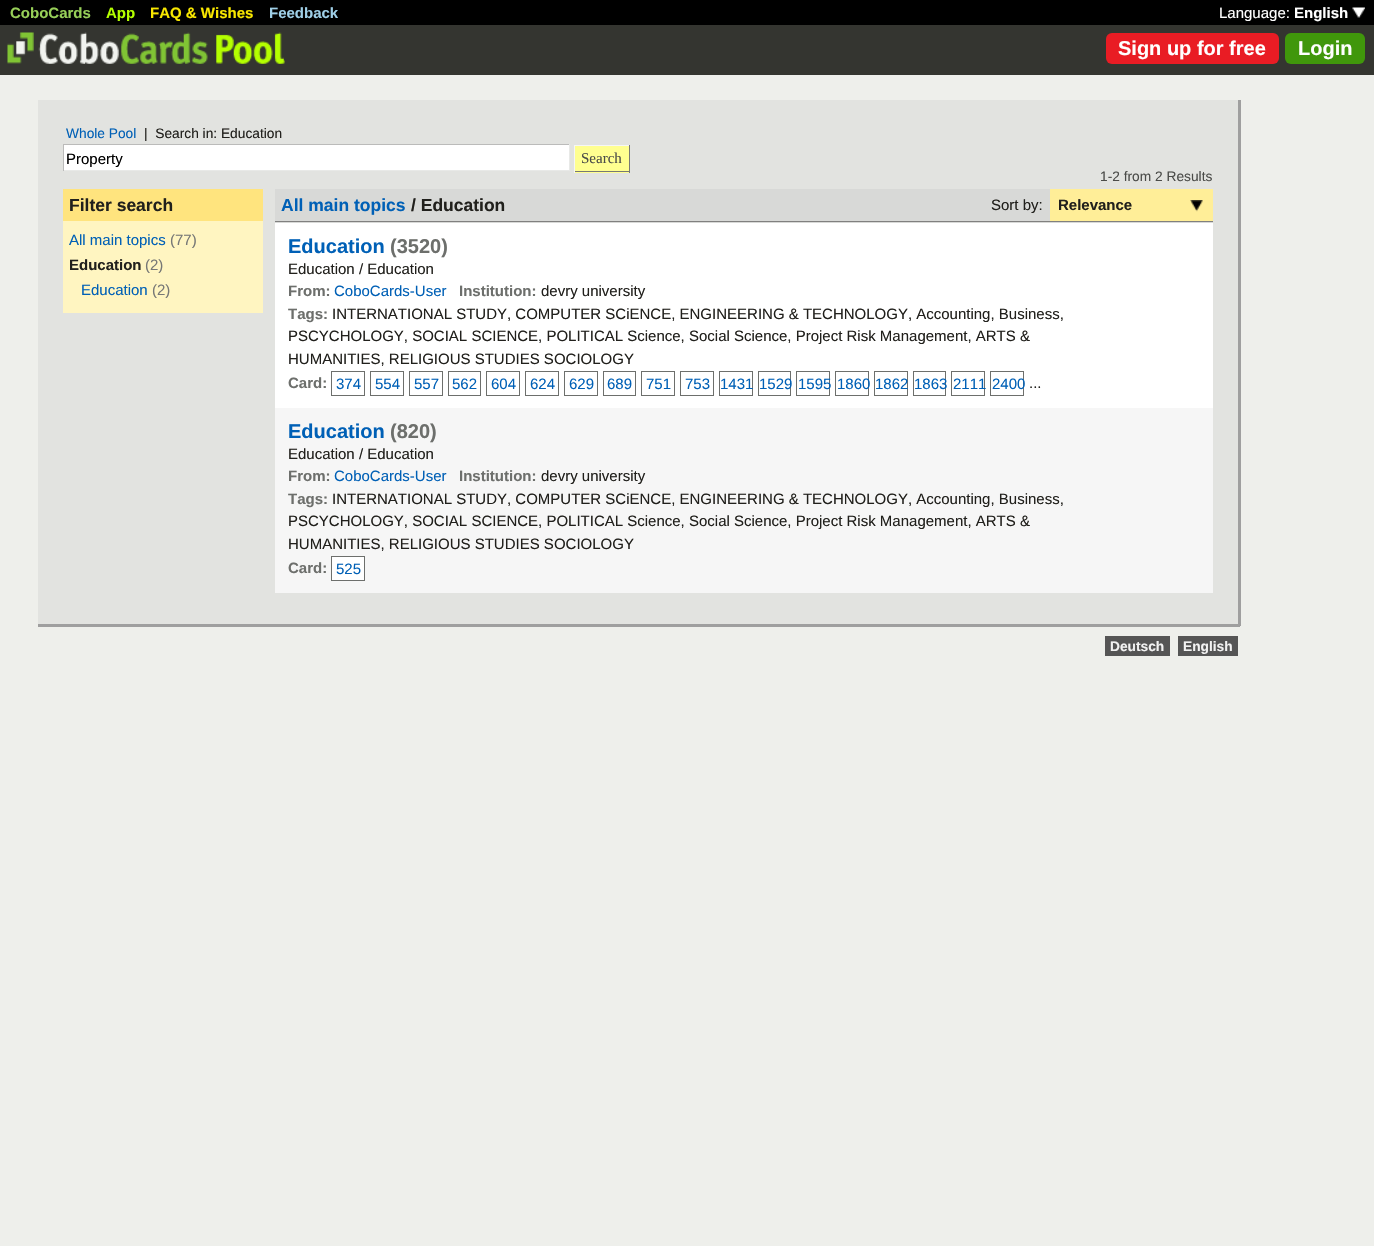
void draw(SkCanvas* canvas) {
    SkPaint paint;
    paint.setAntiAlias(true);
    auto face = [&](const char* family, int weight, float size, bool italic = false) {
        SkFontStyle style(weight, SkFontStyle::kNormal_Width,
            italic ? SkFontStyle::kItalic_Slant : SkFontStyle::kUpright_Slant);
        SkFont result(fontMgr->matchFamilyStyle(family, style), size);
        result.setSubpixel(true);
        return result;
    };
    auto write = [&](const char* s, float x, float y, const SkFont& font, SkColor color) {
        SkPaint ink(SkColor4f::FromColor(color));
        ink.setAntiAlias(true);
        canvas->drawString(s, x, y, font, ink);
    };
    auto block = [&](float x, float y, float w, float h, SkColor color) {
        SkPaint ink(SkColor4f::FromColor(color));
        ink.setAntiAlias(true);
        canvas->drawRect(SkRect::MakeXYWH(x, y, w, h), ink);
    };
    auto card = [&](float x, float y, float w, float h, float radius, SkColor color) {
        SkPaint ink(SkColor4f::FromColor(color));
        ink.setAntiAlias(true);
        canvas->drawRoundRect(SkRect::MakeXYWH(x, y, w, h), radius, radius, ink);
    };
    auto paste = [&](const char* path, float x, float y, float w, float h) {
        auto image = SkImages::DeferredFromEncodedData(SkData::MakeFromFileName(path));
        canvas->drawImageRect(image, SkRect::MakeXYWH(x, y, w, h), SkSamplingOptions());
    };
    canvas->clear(SkColorSetRGB(238, 239, 235));
    block(0, 25, 1374, 50, SkColorSetRGB(52, 53, 48));
    block(0, 0, 1374, 25, SK_ColorBLACK);
    auto kFont1 = face("Liberation Sans", 700, 15);
    write("CoboCards", 10, 18, kFont1, SkColorSetRGB(151, 207, 88));
    write("App", 106, 18, kFont1, SkColorSetRGB(180, 255, 0));
    write("FAQ & Wishes", 150, 18, kFont1, SkColorSetRGB(249, 232, 0));
    write("Feedback", 269, 18, kFont1, SkColorSetRGB(159, 207, 231));
    auto kFont2 = face("Liberation Sans", 400, 15);
    write("Language:", 1219, 18, kFont2, SK_ColorWHITE);
    write("English", 1294, 18, kFont1, SK_ColorWHITE);
    paste("pic1.png", 1352, 7, 13, 11);
    paste("pic2.png", 7, 32, 278, 32);
    card(1106, 33, 173, 31, 6, SkColorSetRGB(233, 28, 36));
    auto kFont3 = face("Liberation Sans", 700, 20);
    write("Sign up for free", 1118, 55, kFont3, SK_ColorWHITE);
    card(1285, 33, 80, 31, 6, SkColorSetRGB(64, 151, 11));
    write("Login", 1298, 55, kFont3, SK_ColorWHITE);
    block(38, 100, 1200, 524, SkColorSetRGB(226, 227, 224));
    block(1238, 100, 3, 526, SkColorSetRGB(159, 159, 159));
    block(38, 624, 1202, 3, SkColorSetRGB(159, 159, 159));
    auto kFont4 = face("Liberation Sans", 400, 13.75f);
    write("Whole Pool", 66, 138, kFont4, SkColorSetRGB(0, 96, 182));
    write("|  Search in: Education", 144, 138, kFont4, SkColorSetRGB(33, 32, 28));
    block(64, 145, 505, 25, SK_ColorWHITE);
    block(63, 144, 507, 1, SkColorSetRGB(187, 187, 186));
    block(569, 144, 1, 27, SkColorSetRGB(232, 233, 231));
    block(63, 170, 507, 1, SkColorSetRGB(232, 233, 231));
    block(63, 144, 1, 27, SkColorSetRGB(187, 187, 186));
    write("Property", 66, 164, kFont2, SK_ColorBLACK);
    block(575, 146, 54, 27, SkColorSetRGB(255, 255, 144));
    block(574, 145, 56, 1, SkColorSetRGB(246, 246, 246));
    block(629, 145, 1, 28, SkColorSetRGB(119, 120, 118));
    block(574, 171, 56, 1, SkColorSetRGB(119, 120, 118));
    block(574, 145, 1, 28, SkColorSetRGB(246, 246, 246));
    auto kFont5 = face("Liberation Serif", 400, 15);
    write("Search", 581, 163, kFont5, SkColorSetRGB(75, 76, 73));
    block(63, 189, 200, 32, SkColorSetRGB(255, 228, 126));
    auto kFont6 = face("Liberation Sans", 700, 17.5f);
    write("Filter search", 69, 211, kFont6, SkColorSetRGB(33, 32, 28));
    block(63, 221, 200, 92, SkColorSetRGB(255, 245, 193));
    write("All main topics", 69, 245, kFont2, SkColorSetRGB(0, 96, 182));
    write("(77)", 170, 245, kFont2, SkColorSetRGB(119, 120, 118));
    write("Education", 69, 270, kFont1, SkColorSetRGB(33, 32, 28));
    write("(2)", 145, 270, kFont2, SkColorSetRGB(119, 120, 118));
    write("Education", 81, 295, kFont2, SkColorSetRGB(0, 96, 182));
    write("(2)", 152, 295, kFont2, SkColorSetRGB(119, 120, 118));
    write("1-2 from 2 Results", 1100, 181, kFont4, SkColorSetRGB(75, 76, 73));
    block(275, 189, 938, 34, SkColorSetRGB(216, 217, 215));
    block(275, 221, 938, 1, SkColorSetRGB(128, 128, 127));
    write("All main topics", 281, 211, kFont6, SkColorSetRGB(0, 96, 182));
    write("/ Education", 411, 211, kFont6, SkColorSetRGB(33, 32, 28));
    write("Sort by:", 991, 210, kFont2, SkColorSetRGB(33, 32, 28));
    block(1050, 189, 163, 32, SkColorSetRGB(255, 238, 152));
    write("Relevance", 1058, 210, kFont1, SkColorSetRGB(33, 32, 28));
    paste("pic3.png", 1190, 200, 13, 12);
    block(275, 223, 938, 185, SK_ColorWHITE);
    write("Education", 288, 253, kFont3, SkColorSetRGB(0, 96, 182));
    write("(3520)", 390, 253, kFont3, SkColorSetRGB(109, 111, 108));
    write("Education / Education", 288, 274, kFont2, SkColorSetRGB(33, 32, 28));
    write("From:", 288, 296, kFont1, SkColorSetRGB(109, 111, 108));
    write("CoboCards-User", 334, 296, kFont2, SkColorSetRGB(0, 96, 182));
    write("Institution:", 459, 296, kFont1, SkColorSetRGB(109, 111, 108));
    write("devry university", 541, 296, kFont2, SkColorSetRGB(33, 32, 28));
    write("Tags:", 288, 319, kFont1, SkColorSetRGB(109, 111, 108));
    write("INTERNATIONAL STUDY, COMPUTER SCiENCE, ENGINEERING & TECHNOLOGY, Accounting, Business,", 332, 319, kFont2, SkColorSetRGB(33, 32, 28));
    write("PSCYCHOLOGY, SOCIAL SCIENCE, POLITICAL Science, Social Science, Project Risk Management, ARTS &", 288, 341, kFont2, SkColorSetRGB(33, 32, 28));
    write("HUMANITIES, RELIGIOUS STUDIES SOCIOLOGY", 288, 364, kFont2, SkColorSetRGB(33, 32, 28));
    write("Card:", 288, 388, kFont1, SkColorSetRGB(109, 111, 108));
    paint.setStyle(SkPaint::kStroke_Style);
    paint.setStrokeWidth(1);
    paint.setColor(SkColorSetRGB(109, 111, 108));
    canvas->drawRect(SkRect::MakeXYWH(331.5f, 371.5f, 33, 24), paint);
    write("374", 336, 389, kFont2, SkColorSetRGB(0, 96, 182));
    canvas->drawRect(SkRect::MakeXYWH(370.5f, 371.5f, 33, 24), paint);
    write("554", 375, 389, kFont2, SkColorSetRGB(0, 96, 182));
    canvas->drawRect(SkRect::MakeXYWH(409.5f, 371.5f, 33, 24), paint);
    write("557", 414, 389, kFont2, SkColorSetRGB(0, 96, 182));
    canvas->drawRect(SkRect::MakeXYWH(448.5f, 371.5f, 32, 24), paint);
    write("562", 452, 389, kFont2, SkColorSetRGB(0, 96, 182));
    canvas->drawRect(SkRect::MakeXYWH(486.5f, 371.5f, 33, 24), paint);
    write("604", 491, 389, kFont2, SkColorSetRGB(0, 96, 182));
    canvas->drawRect(SkRect::MakeXYWH(525.5f, 371.5f, 33, 24), paint);
    write("624", 530, 389, kFont2, SkColorSetRGB(0, 96, 182));
    canvas->drawRect(SkRect::MakeXYWH(564.5f, 371.5f, 33, 24), paint);
    write("629", 569, 389, kFont2, SkColorSetRGB(0, 96, 182));
    canvas->drawRect(SkRect::MakeXYWH(603.5f, 371.5f, 32, 24), paint);
    write("689", 607, 389, kFont2, SkColorSetRGB(0, 96, 182));
    canvas->drawRect(SkRect::MakeXYWH(641.5f, 371.5f, 33, 24), paint);
    write("751", 646, 389, kFont2, SkColorSetRGB(0, 96, 182));
    canvas->drawRect(SkRect::MakeXYWH(680.5f, 371.5f, 33, 24), paint);
    write("753", 685, 389, kFont2, SkColorSetRGB(0, 96, 182));
    canvas->drawRect(SkRect::MakeXYWH(719.5f, 371.5f, 33, 24), paint);
    write("1431", 720, 389, kFont2, SkColorSetRGB(0, 96, 182));
    canvas->drawRect(SkRect::MakeXYWH(758.5f, 371.5f, 32, 24), paint);
    write("1529", 759, 389, kFont2, SkColorSetRGB(0, 96, 182));
    canvas->drawRect(SkRect::MakeXYWH(796.5f, 371.5f, 33, 24), paint);
    write("1595", 798, 389, kFont2, SkColorSetRGB(0, 96, 182));
    canvas->drawRect(SkRect::MakeXYWH(835.5f, 371.5f, 33, 24), paint);
    write("1860", 837, 389, kFont2, SkColorSetRGB(0, 96, 182));
    canvas->drawRect(SkRect::MakeXYWH(874.5f, 371.5f, 33, 24), paint);
    write("1862", 875, 389, kFont2, SkColorSetRGB(0, 96, 182));
    canvas->drawRect(SkRect::MakeXYWH(913.5f, 371.5f, 32, 24), paint);
    write("1863", 914, 389, kFont2, SkColorSetRGB(0, 96, 182));
    canvas->drawRect(SkRect::MakeXYWH(951.5f, 371.5f, 33, 24), paint);
    write("2111", 953, 389, kFont2, SkColorSetRGB(0, 96, 182));
    canvas->drawRect(SkRect::MakeXYWH(990.5f, 371.5f, 33, 24), paint);
    write("2400", 992, 389, kFont2, SkColorSetRGB(0, 96, 182));
    write("...", 1029, 388, kFont2, SkColorSetRGB(33, 32, 28));
    block(275, 408, 938, 185, SkColorSetRGB(246, 246, 246));
    write("Education", 288, 438, kFont3, SkColorSetRGB(0, 96, 182));
    write("(820)", 390, 438, kFont3, SkColorSetRGB(109, 111, 108));
    write("Education / Education", 288, 459, kFont2, SkColorSetRGB(33, 32, 28));
    write("From:", 288, 481, kFont1, SkColorSetRGB(109, 111, 108));
    write("CoboCards-User", 334, 481, kFont2, SkColorSetRGB(0, 96, 182));
    write("Institution:", 459, 481, kFont1, SkColorSetRGB(109, 111, 108));
    write("devry university", 541, 481, kFont2, SkColorSetRGB(33, 32, 28));
    write("Tags:", 288, 504, kFont1, SkColorSetRGB(109, 111, 108));
    write("INTERNATIONAL STUDY, COMPUTER SCiENCE, ENGINEERING & TECHNOLOGY, Accounting, Business,", 332, 504, kFont2, SkColorSetRGB(33, 32, 28));
    write("PSCYCHOLOGY, SOCIAL SCIENCE, POLITICAL Science, Social Science, Project Risk Management, ARTS &", 288, 526, kFont2, SkColorSetRGB(33, 32, 28));
    write("HUMANITIES, RELIGIOUS STUDIES SOCIOLOGY", 288, 549, kFont2, SkColorSetRGB(33, 32, 28));
    write("Card:", 288, 573, kFont1, SkColorSetRGB(109, 111, 108));
    paint.setStyle(SkPaint::kFill_Style);
    paint.setColor(SK_ColorWHITE);
    canvas->drawRect(SkRect::MakeXYWH(331.5f, 556.5f, 33, 24), paint);
    paint.setStyle(SkPaint::kStroke_Style);
    paint.setColor(SkColorSetRGB(109, 111, 108));
    canvas->drawRect(SkRect::MakeXYWH(331.5f, 556.5f, 33, 24), paint);
    write("525", 336, 574, kFont2, SkColorSetRGB(0, 96, 182));
    block(1105, 636, 65, 20, SkColorSetRGB(85, 85, 85));
    auto kFont7 = face("Liberation Sans", 700, 13.75f);
    write("Deutsch", 1110, 651, kFont7, SkColorSetRGB(242, 242, 242));
    block(1178, 636, 60, 20, SkColorSetRGB(85, 85, 85));
    write("English", 1183, 651, kFont7, SkColorSetRGB(242, 242, 242));
}
